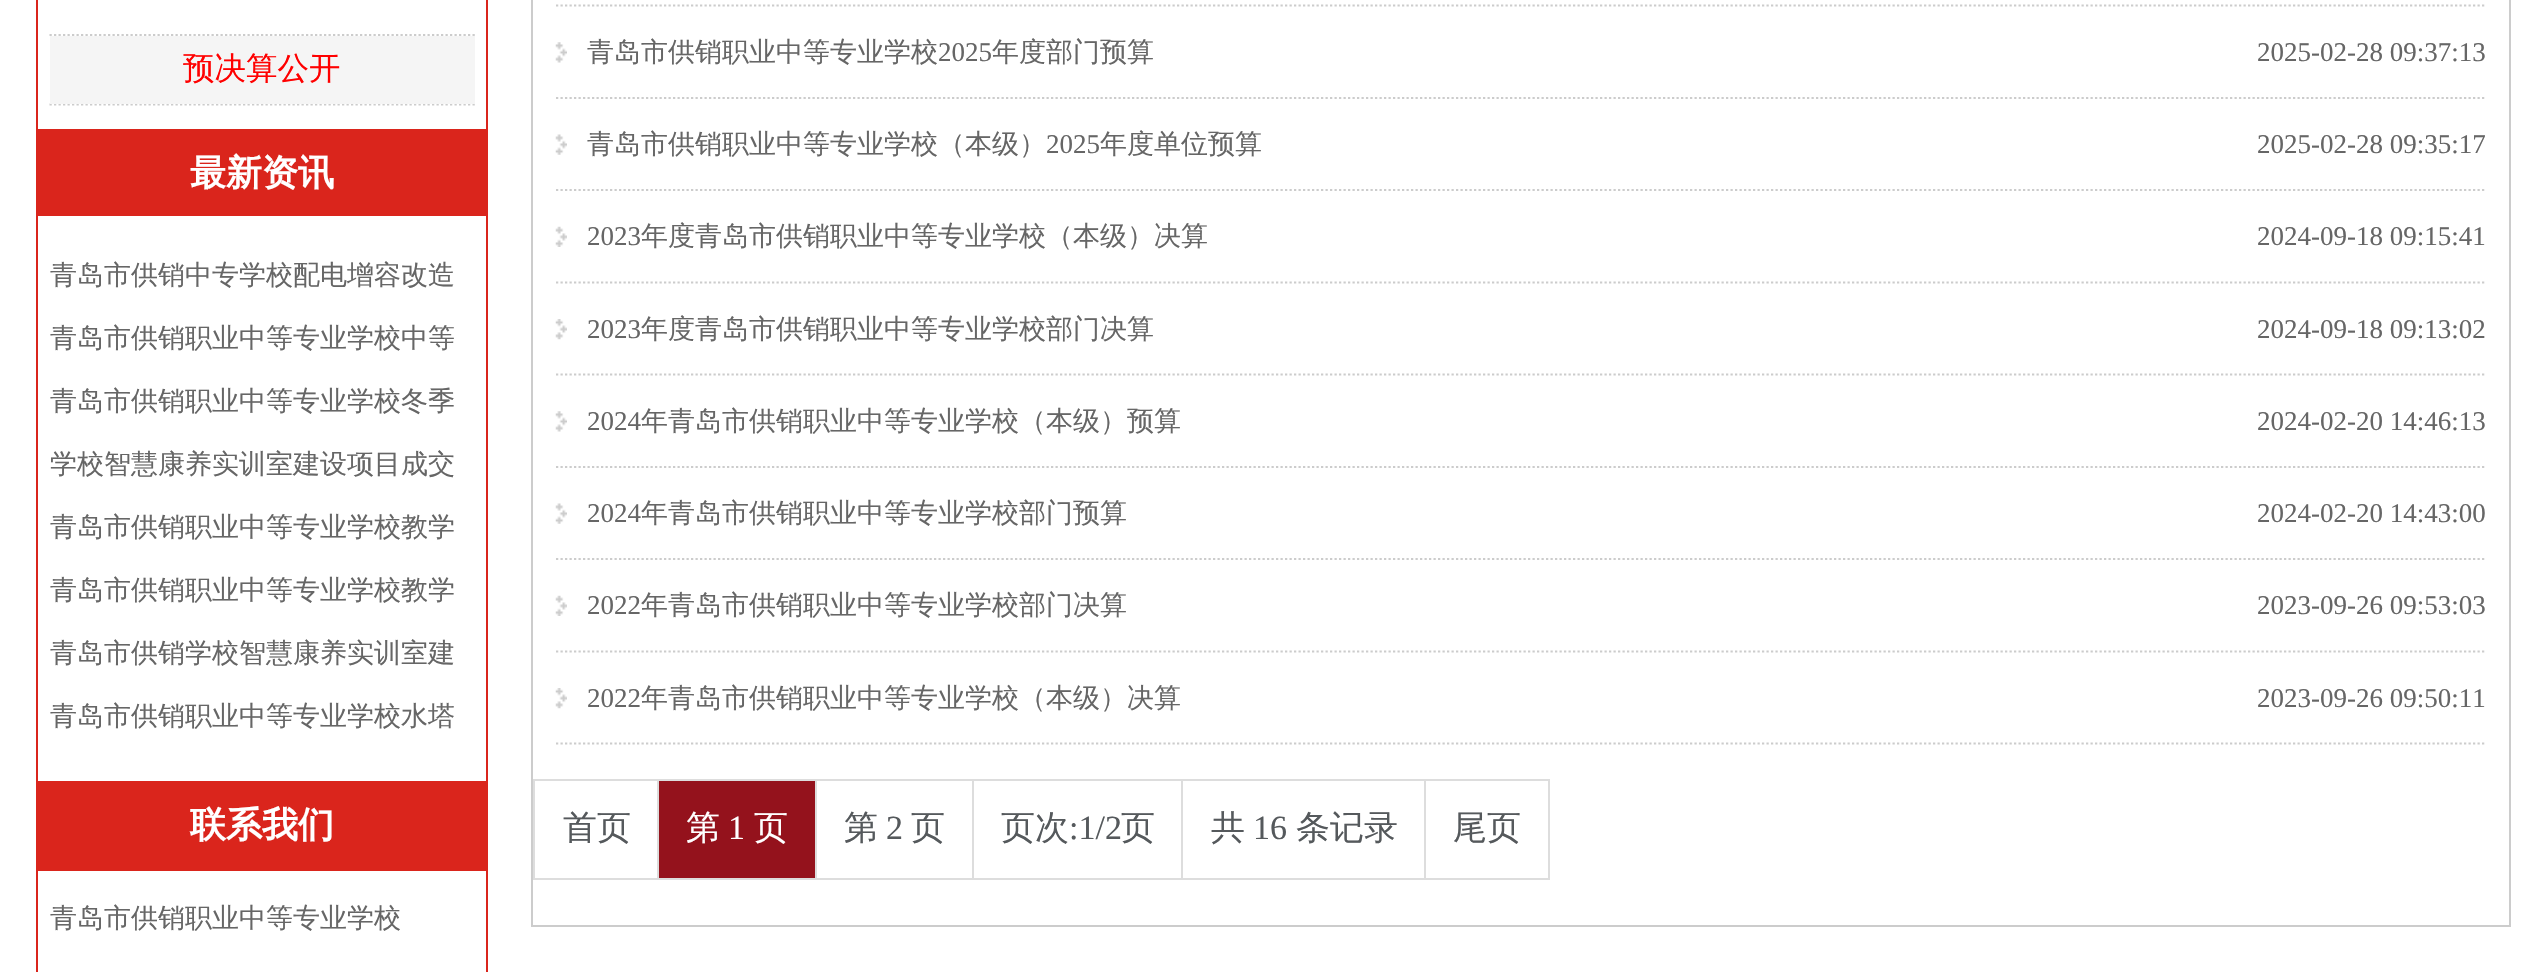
void draw(SkCanvas* canvas) {
    SkPaint paint;
    paint.setAntiAlias(true);
    auto face = [&](const char* family, int weight, float size, bool italic = false) {
        SkFontStyle style(weight, SkFontStyle::kNormal_Width,
            italic ? SkFontStyle::kItalic_Slant : SkFontStyle::kUpright_Slant);
        SkFont result(fontMgr->matchFamilyStyle(family, style), size);
        result.setSubpixel(true);
        return result;
    };
    auto write = [&](const char* s, float x, float y, const SkFont& font, SkColor color) {
        SkPaint ink(SkColor4f::FromColor(color));
        ink.setAntiAlias(true);
        canvas->drawString(s, x, y, font, ink);
    };
    auto block = [&](float x, float y, float w, float h, SkColor color) {
        SkPaint ink(SkColor4f::FromColor(color));
        ink.setAntiAlias(true);
        canvas->drawRect(SkRect::MakeXYWH(x, y, w, h), ink);
    };
    auto paste = [&](const char* path, float x, float y, float w, float h) {
        auto image = SkImages::DeferredFromEncodedData(SkData::MakeFromFileName(path));
        canvas->drawImageRect(image, SkRect::MakeXYWH(x, y, w, h), SkSamplingOptions());
    };
    canvas->clear(SK_ColorWHITE);
    paint.setStyle(SkPaint::kStroke_Style);
    paint.setStrokeWidth(2);
    paint.setColor(SkColorSetRGB(218, 37, 28));
    canvas->drawRect(SkRect::MakeXYWH(37, -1, 450, 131), paint);
    paint.setStrokeWidth(2.2f);
    paint.setColor(SkColorSetRGB(204, 204, 204));
    paint.setPathEffect(SkDashPathEffect::Make({{2.25f, 2.25f}}, 0));
    canvas->drawPath(SkPathBuilder().moveTo(49.5f, 35).lineTo(475, 35).detach(), paint);
    paint.setPathEffect(nullptr);
    paint.setPathEffect(SkDashPathEffect::Make({{2.25f, 2.25f}}, 0));
    canvas->drawPath(SkPathBuilder().moveTo(49.5f, 104.5f).lineTo(475, 104.5f).detach(), paint);
    paint.setPathEffect(nullptr);
    block(50, 36, 425, 68, SkColorSetRGB(245, 245, 245));
    auto kFont1 = face("WenQuanYi Zen Hei", 500, 31.5f);
    write("预决算公开", 183, 79, kFont1, SkColorSetRGB(255, 0, 0));
    block(36, 131, 452, 85, SkColorSetRGB(218, 37, 28));
    auto kFont2 = face("WenQuanYi Zen Hei", 700, 36);
    write("最新资讯", 190, 185, kFont2, SK_ColorWHITE);
    block(486, 216, 2, 567, SkColorSetRGB(218, 37, 28));
    block(36, 781, 452, 88, SkColorSetRGB(218, 37, 28));
    block(36, 216, 2, 567, SkColorSetRGB(218, 37, 28));
    auto kFont3 = face("WenQuanYi Zen Hei", 500, 27);
    write("青岛市供销中专学校配电增容改造", 50, 284, kFont3, SkColorSetRGB(102, 102, 102));
    write("青岛市供销职业中等专业学校中等", 50, 347, kFont3, SkColorSetRGB(102, 102, 102));
    write("青岛市供销职业中等专业学校冬季", 50, 410, kFont3, SkColorSetRGB(102, 102, 102));
    write("学校智慧康养实训室建设项目成交", 50, 473, kFont3, SkColorSetRGB(102, 102, 102));
    write("青岛市供销职业中等专业学校教学", 50, 536, kFont3, SkColorSetRGB(102, 102, 102));
    write("青岛市供销职业中等专业学校教学", 50, 599, kFont3, SkColorSetRGB(102, 102, 102));
    write("青岛市供销学校智慧康养实训室建", 50, 662, kFont3, SkColorSetRGB(102, 102, 102));
    write("青岛市供销职业中等专业学校水塔", 50, 725, kFont3, SkColorSetRGB(102, 102, 102));
    write("联系我们", 190, 837, kFont2, SK_ColorWHITE);
    paint.setStrokeWidth(2);
    paint.setColor(SkColorSetRGB(218, 37, 28));
    canvas->drawRect(SkRect::MakeXYWH(37, 870, 450, 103), paint);
    write("青岛市供销职业中等专业学校", 50, 927, kFont3, SkColorSetRGB(102, 102, 102));
    paint.setColor(SkColorSetRGB(204, 204, 204));
    canvas->drawRect(SkRect::MakeXYWH(532, -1, 1978, 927), paint);
    paint.setStrokeWidth(2.2f);
    paint.setPathEffect(SkDashPathEffect::Make({{2.25f, 2.25f}}, 0));
    canvas->drawPath(SkPathBuilder().moveTo(556, 5.5f).lineTo(2486, 5.5f).detach(), paint);
    paint.setPathEffect(nullptr);
    paste("pic1.png", 555, 42, 12, 21);
    paint.setPathEffect(SkDashPathEffect::Make({{2.25f, 2.25f}}, 0));
    canvas->drawPath(SkPathBuilder().moveTo(556, 98).lineTo(2486, 98).detach(), paint);
    paint.setPathEffect(nullptr);
    write("青岛市供销职业中等专业学校", 587, 61, kFont3, SkColorSetRGB(102, 102, 102));
    auto kFont4 = face("Liberation Serif", 400, 27);
    write("2025", 938, 61, kFont4, SkColorSetRGB(102, 102, 102));
    write("年度部门预算", 992, 61, kFont3, SkColorSetRGB(102, 102, 102));
    write("2025-02-28 09:37:13", 2257, 61, kFont4, SkColorSetRGB(102, 102, 102));
    paste("pic2.png", 555, 134, 12, 21);
    paint.setPathEffect(SkDashPathEffect::Make({{2.25f, 2.25f}}, 0));
    canvas->drawPath(SkPathBuilder().moveTo(556, 190).lineTo(2486, 190).detach(), paint);
    paint.setPathEffect(nullptr);
    write("青岛市供销职业中等专业学校（本级）", 587, 153, kFont3, SkColorSetRGB(102, 102, 102));
    write("2025", 1046, 153, kFont4, SkColorSetRGB(102, 102, 102));
    write("年度单位预算", 1100, 153, kFont3, SkColorSetRGB(102, 102, 102));
    write("2025-02-28 09:35:17", 2257, 153, kFont4, SkColorSetRGB(102, 102, 102));
    paste("pic3.png", 555, 226, 12, 21);
    paint.setPathEffect(SkDashPathEffect::Make({{2.25f, 2.25f}}, 0));
    canvas->drawPath(SkPathBuilder().moveTo(556, 282.5f).lineTo(2486, 282.5f).detach(), paint);
    paint.setPathEffect(nullptr);
    write("2023", 587, 245, kFont4, SkColorSetRGB(102, 102, 102));
    write("年度青岛市供销职业中等专业学校（本级）决算", 641, 245, kFont3, SkColorSetRGB(102, 102, 102));
    write("2024-09-18 09:15:41", 2257, 245, kFont4, SkColorSetRGB(102, 102, 102));
    paste("pic4.png", 555, 319, 12, 21);
    paint.setPathEffect(SkDashPathEffect::Make({{2.25f, 2.25f}}, 0));
    canvas->drawPath(SkPathBuilder().moveTo(556, 374.5f).lineTo(2486, 374.5f).detach(), paint);
    paint.setPathEffect(nullptr);
    write("2023", 587, 338, kFont4, SkColorSetRGB(102, 102, 102));
    write("年度青岛市供销职业中等专业学校部门决算", 641, 338, kFont3, SkColorSetRGB(102, 102, 102));
    write("2024-09-18 09:13:02", 2257, 338, kFont4, SkColorSetRGB(102, 102, 102));
    paste("pic1.png", 555, 411, 12, 21);
    paint.setPathEffect(SkDashPathEffect::Make({{2.25f, 2.25f}}, 0));
    canvas->drawPath(SkPathBuilder().moveTo(556, 467).lineTo(2486, 467).detach(), paint);
    paint.setPathEffect(nullptr);
    write("2024", 587, 430, kFont4, SkColorSetRGB(102, 102, 102));
    write("年青岛市供销职业中等专业学校（本级）预算", 641, 430, kFont3, SkColorSetRGB(102, 102, 102));
    write("2024-02-20 14:46:13", 2257, 430, kFont4, SkColorSetRGB(102, 102, 102));
    paste("pic2.png", 555, 503, 12, 21);
    paint.setPathEffect(SkDashPathEffect::Make({{2.25f, 2.25f}}, 0));
    canvas->drawPath(SkPathBuilder().moveTo(556, 559).lineTo(2486, 559).detach(), paint);
    paint.setPathEffect(nullptr);
    write("2024", 587, 522, kFont4, SkColorSetRGB(102, 102, 102));
    write("年青岛市供销职业中等专业学校部门预算", 641, 522, kFont3, SkColorSetRGB(102, 102, 102));
    write("2024-02-20 14:43:00", 2257, 522, kFont4, SkColorSetRGB(102, 102, 102));
    paste("pic3.png", 555, 595, 12, 21);
    paint.setPathEffect(SkDashPathEffect::Make({{2.25f, 2.25f}}, 0));
    canvas->drawPath(SkPathBuilder().moveTo(556, 651.5f).lineTo(2486, 651.5f).detach(), paint);
    paint.setPathEffect(nullptr);
    write("2022", 587, 614, kFont4, SkColorSetRGB(102, 102, 102));
    write("年青岛市供销职业中等专业学校部门决算", 641, 614, kFont3, SkColorSetRGB(102, 102, 102));
    write("2023-09-26 09:53:03", 2257, 614, kFont4, SkColorSetRGB(102, 102, 102));
    paste("pic4.png", 555, 688, 12, 21);
    paint.setPathEffect(SkDashPathEffect::Make({{2.25f, 2.25f}}, 0));
    canvas->drawPath(SkPathBuilder().moveTo(556, 743.5f).lineTo(2486, 743.5f).detach(), paint);
    paint.setPathEffect(nullptr);
    write("2022", 587, 707, kFont4, SkColorSetRGB(102, 102, 102));
    write("年青岛市供销职业中等专业学校（本级）决算", 641, 707, kFont3, SkColorSetRGB(102, 102, 102));
    write("2023-09-26 09:50:11", 2257, 707, kFont4, SkColorSetRGB(102, 102, 102));
    paint.setStrokeWidth(2);
    paint.setColor(SkColorSetRGB(221, 221, 221));
    canvas->drawRect(SkRect::MakeXYWH(534, 780, 124, 99), paint);
    auto kFont5 = face("WenQuanYi Zen Hei", 500, 34);
    write("首页", 563, 839, kFont5, SkColorSetRGB(85, 89, 92));
    paint.setStyle(SkPaint::kFill_Style);
    paint.setColor(SkColorSetRGB(148, 18, 28));
    canvas->drawRect(SkRect::MakeXYWH(658, 780, 158, 99), paint);
    paint.setStyle(SkPaint::kStroke_Style);
    paint.setColor(SkColorSetRGB(221, 221, 221));
    canvas->drawRect(SkRect::MakeXYWH(658, 780, 158, 99), paint);
    write("第", 686, 839, kFont5, SK_ColorWHITE);
    auto kFont6 = face("Liberation Serif", 400, 34);
    write("1", 728, 839, kFont6, SK_ColorWHITE);
    write("页", 754, 839, kFont5, SK_ColorWHITE);
    canvas->drawRect(SkRect::MakeXYWH(816, 780, 157, 99), paint);
    write("第", 844, 839, kFont5, SkColorSetRGB(85, 89, 92));
    write("2", 886, 839, kFont6, SkColorSetRGB(85, 89, 92));
    write("页", 911, 839, kFont5, SkColorSetRGB(85, 89, 92));
    canvas->drawRect(SkRect::MakeXYWH(973, 780, 210, 99), paint);
    write("页次", 1001, 839, kFont5, SkColorSetRGB(85, 89, 92));
    write(":1/2", 1069, 839, kFont6, SkColorSetRGB(85, 89, 92));
    write("页", 1121, 839, kFont5, SkColorSetRGB(85, 89, 92));
    block(1183, 781, 1, 97, SK_ColorWHITE);
    canvas->drawRect(SkRect::MakeXYWH(1182, 780, 244, 99), paint);
    write("共", 1211, 839, kFont5, SkColorSetRGB(85, 89, 92));
    write("16", 1253, 839, kFont6, SkColorSetRGB(85, 89, 92));
    write("条记录", 1296, 839, kFont5, SkColorSetRGB(85, 89, 92));
    block(1426, 781, 1, 97, SK_ColorWHITE);
    canvas->drawRect(SkRect::MakeXYWH(1425, 780, 124, 99), paint);
    write("尾页", 1453, 839, kFont5, SkColorSetRGB(85, 89, 92));
}
